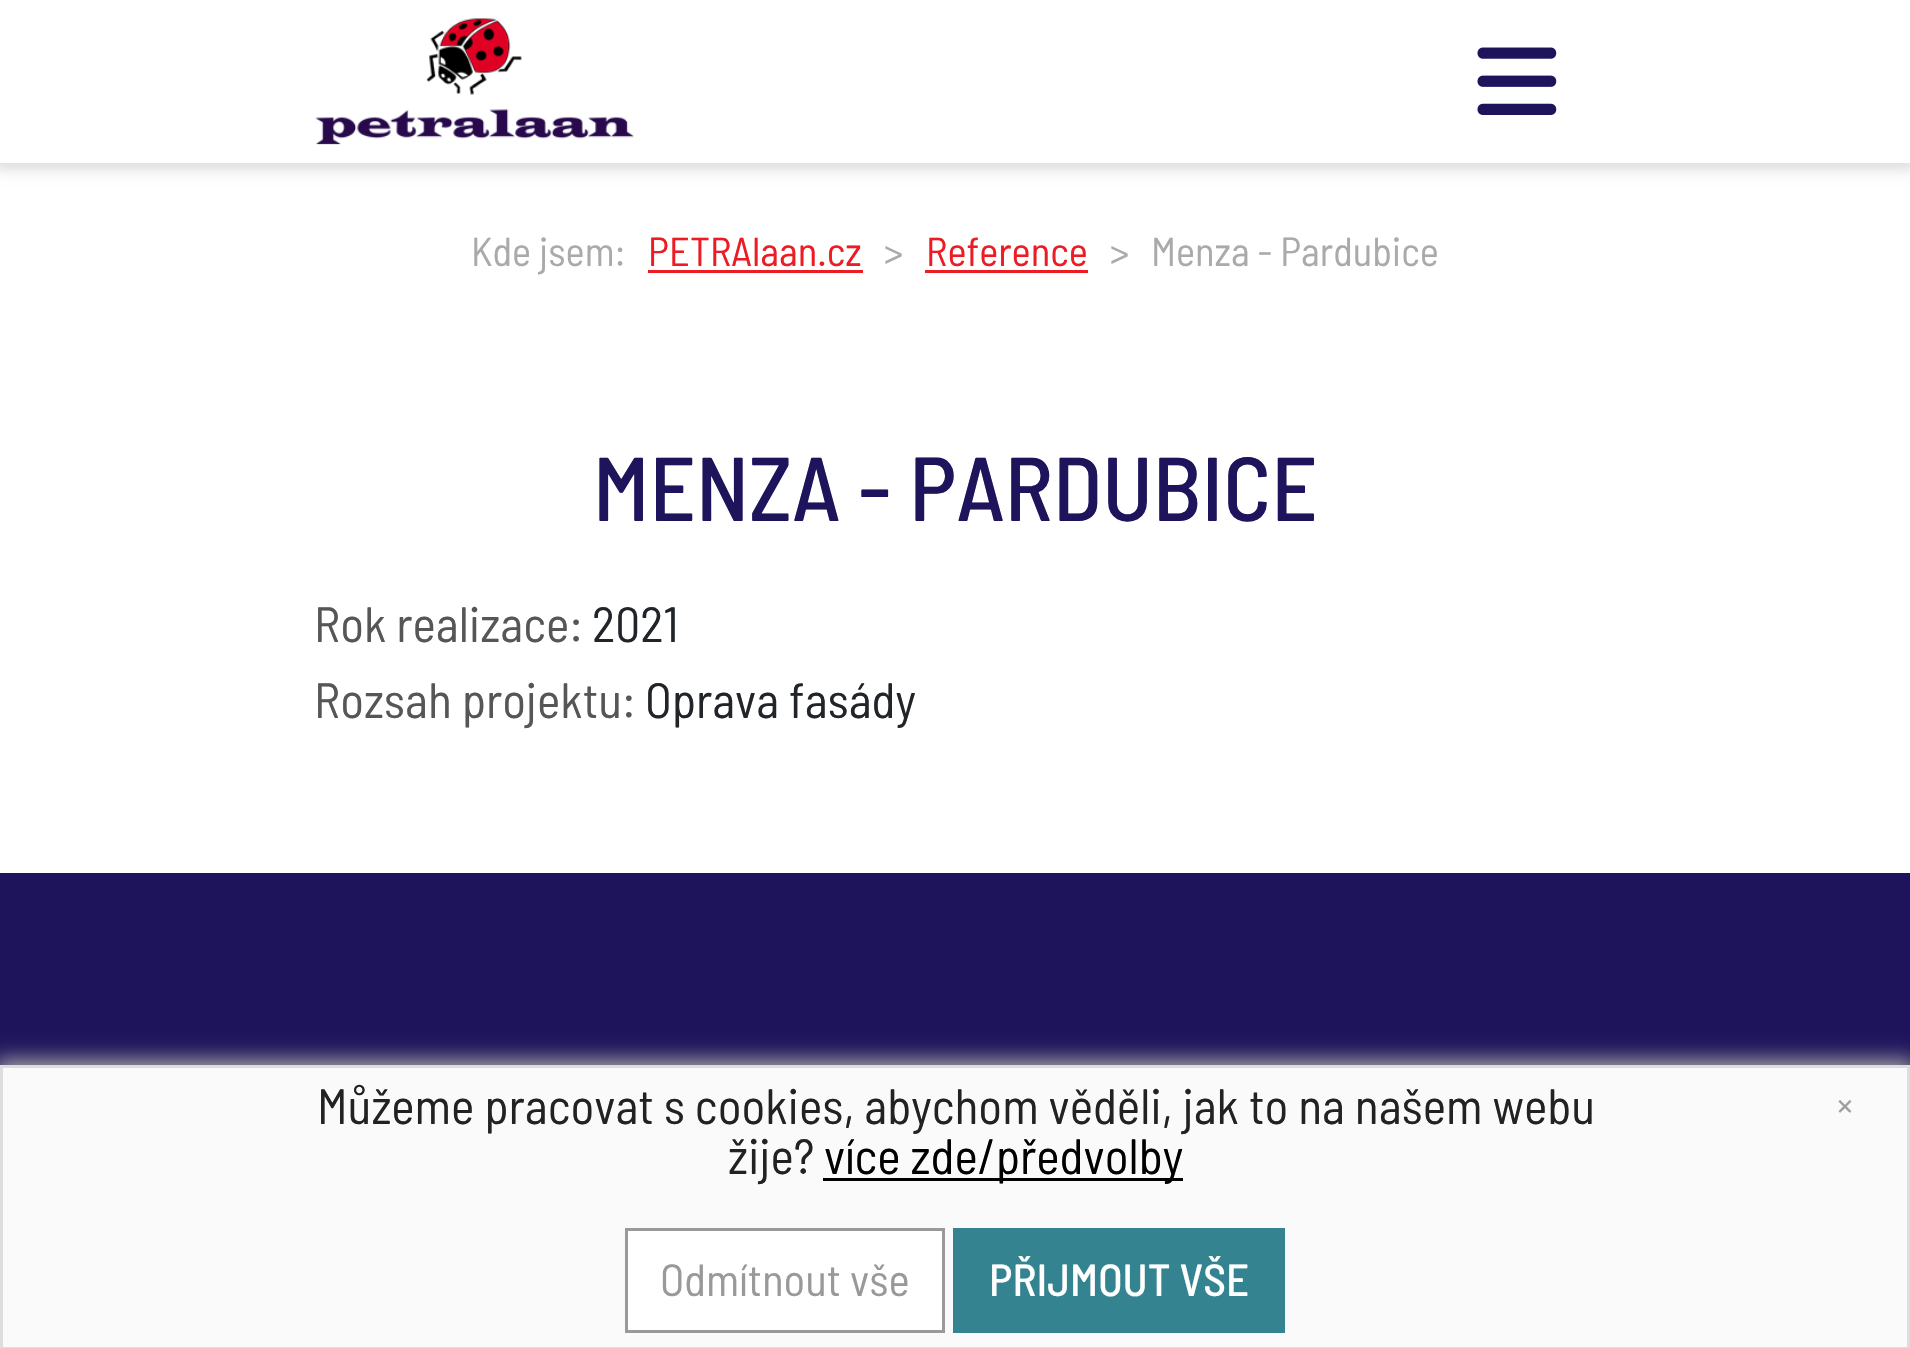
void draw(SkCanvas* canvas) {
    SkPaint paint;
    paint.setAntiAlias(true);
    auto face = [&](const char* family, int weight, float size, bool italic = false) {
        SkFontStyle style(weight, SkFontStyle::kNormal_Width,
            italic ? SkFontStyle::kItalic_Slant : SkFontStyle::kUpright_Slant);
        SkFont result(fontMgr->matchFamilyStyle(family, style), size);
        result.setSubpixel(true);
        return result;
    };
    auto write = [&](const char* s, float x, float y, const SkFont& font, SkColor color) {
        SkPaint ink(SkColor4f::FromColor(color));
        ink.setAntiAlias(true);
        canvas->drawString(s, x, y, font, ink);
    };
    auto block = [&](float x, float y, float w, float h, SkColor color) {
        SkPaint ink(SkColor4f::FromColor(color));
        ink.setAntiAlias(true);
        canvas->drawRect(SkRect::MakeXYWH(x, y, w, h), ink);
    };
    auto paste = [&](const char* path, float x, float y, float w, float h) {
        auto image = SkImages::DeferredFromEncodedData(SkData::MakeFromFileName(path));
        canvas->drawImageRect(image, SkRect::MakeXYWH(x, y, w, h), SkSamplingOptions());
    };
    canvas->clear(SK_ColorWHITE);
    canvas->save();
    canvas->clipPath(SkPathBuilder(SkPathFillType::kEvenOdd).moveTo(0, 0).lineTo(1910, 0).lineTo(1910, 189).lineTo(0, 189).close().moveTo(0, 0).lineTo(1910, 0).lineTo(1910, 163).lineTo(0, 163).close().detach(), true);
    paint.setColor(SkColorSetRGB(221, 221, 221));
    paint.setMaskFilter(SkMaskFilter::MakeBlur(kNormal_SkBlurStyle, 6));
    canvas->drawRect(SkRect::MakeXYWH(-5, -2, 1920, 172), paint);
    paint.setMaskFilter(nullptr);
    canvas->restore();
    paste("pic1.png", 315, 18, 319, 127);
    paste("pic2.png", 1477, 47, 80, 68);
    auto kFont1 = face("Barlow Semi Condensed", 400, 40.5f);
    write("Kde jsem:", 471, 266, kFont1, SkColorSetRGB(170, 170, 170));
    write("PETRAlaan.cz", 648, 266, kFont1, SkColorSetRGB(237, 28, 36));
    block(648, 270, 215, 3, SkColorSetRGB(237, 28, 36));
    write(">", 884, 266, kFont1, SkColorSetRGB(170, 170, 170));
    write("Reference", 926, 266, kFont1, SkColorSetRGB(237, 28, 36));
    block(925, 270, 163, 3, SkColorSetRGB(237, 28, 36));
    write(">", 1110, 266, kFont1, SkColorSetRGB(170, 170, 170));
    write("Menza - Pardubice", 1151, 266, kFont1, SkColorSetRGB(170, 170, 170));
    auto kFont2 = face("Barlow Semi Condensed", 500, 90.5f);
    write("MENZA - PARDUBICE", 593, 521, kFont2, SkColorSetRGB(30, 20, 92));
    auto kFont3 = face("Barlow Semi Condensed", 400, 49.5f);
    write("Rok realizace:", 314, 642, kFont3, SkColorSetRGB(86, 86, 86));
    write("2021", 592, 642, kFont3, SkColorSetRGB(33, 37, 41));
    write("Rozsah projektu:", 314, 718, kFont3, SkColorSetRGB(86, 86, 86));
    write("Oprava fasády", 645, 718, kFont3, SkColorSetRGB(33, 37, 41));
    block(0, 873, 1910, 192, SkColorSetRGB(30, 20, 92));
    paint.setColor(SkColorSetRGB(170, 170, 170));
    paint.setMaskFilter(SkMaskFilter::MakeBlur(kNormal_SkBlurStyle, 10));
    canvas->drawRect(SkRect::MakeXYWH(-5, 1060, 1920, 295), paint);
    paint.setMaskFilter(nullptr);
    paint.setColor(SkColorSetRGB(250, 250, 250));
    canvas->drawRect(SkRect::MakeXYWH(1.5f, 1066.5f, 1907, 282), paint);
    paint.setStyle(SkPaint::kStroke_Style);
    paint.setStrokeWidth(3);
    paint.setColor(SkColorSetRGB(221, 221, 221));
    canvas->drawRect(SkRect::MakeXYWH(1.5f, 1066.5f, 1907, 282), paint);
    write("Můžeme pracovat s cookies, abychom věděli, jak to na našem webu", 317, 1124, kFont3, SkColorSetRGB(34, 34, 34));
    write("žije?", 728, 1174, kFont3, SkColorSetRGB(34, 34, 34));
    block(823, 1178, 360, 3, SK_ColorBLACK);
    write("více zde/předvolby", 824, 1174, kFont3, SK_ColorBLACK);
    paint.setStyle(SkPaint::kFill_Style);
    paint.setColor(SK_ColorWHITE);
    canvas->drawRect(SkRect::MakeXYWH(626.5f, 1229.5f, 317, 102), paint);
    paint.setStyle(SkPaint::kStroke_Style);
    paint.setColor(SkColorSetRGB(153, 153, 153));
    canvas->drawRect(SkRect::MakeXYWH(626.5f, 1229.5f, 317, 102), paint);
    auto kFont4 = face("Barlow Semi Condensed", 400, 45);
    write("Odmítnout vše", 660, 1296, kFont4, SkColorSetRGB(153, 153, 153));
    block(953, 1228, 332, 105, SkColorSetRGB(51, 132, 144));
    auto kFont5 = face("Barlow Semi Condensed", 500, 45);
    write("PŘIJMOUT VŠE", 989, 1296, kFont5, SK_ColorWHITE);
    auto kFont6 = face("Barlow Semi Condensed", 400, 40);
    write("×", 1837, 1119, kFont6, SkColorSetRGB(160, 160, 160));
}
